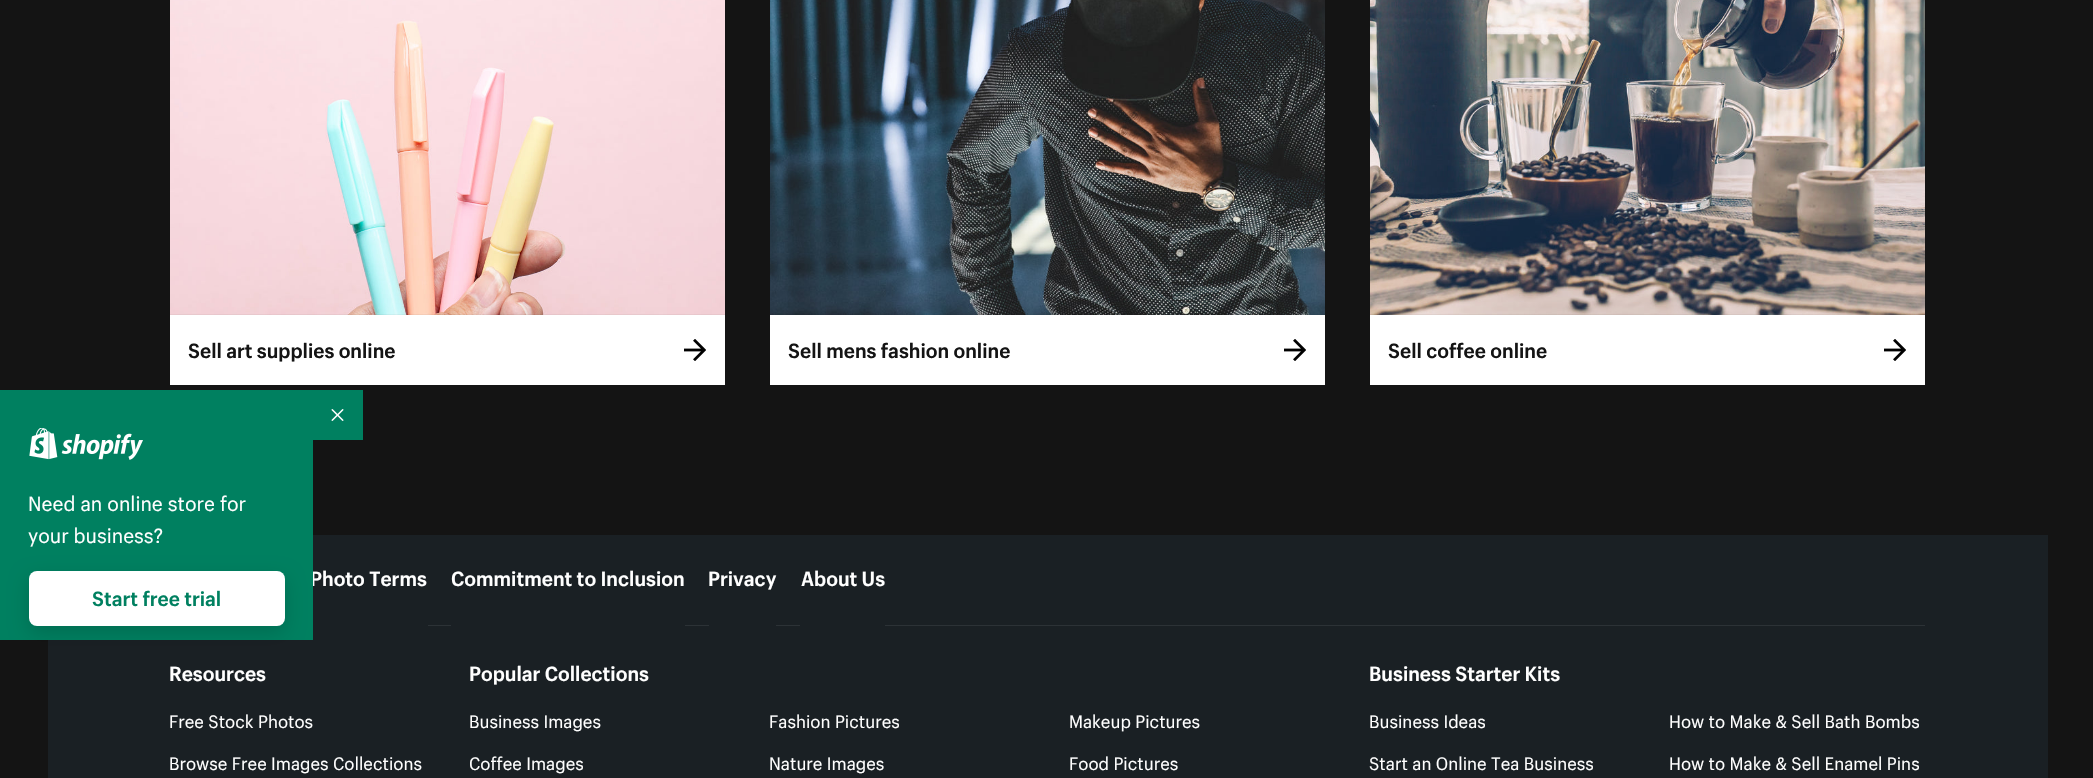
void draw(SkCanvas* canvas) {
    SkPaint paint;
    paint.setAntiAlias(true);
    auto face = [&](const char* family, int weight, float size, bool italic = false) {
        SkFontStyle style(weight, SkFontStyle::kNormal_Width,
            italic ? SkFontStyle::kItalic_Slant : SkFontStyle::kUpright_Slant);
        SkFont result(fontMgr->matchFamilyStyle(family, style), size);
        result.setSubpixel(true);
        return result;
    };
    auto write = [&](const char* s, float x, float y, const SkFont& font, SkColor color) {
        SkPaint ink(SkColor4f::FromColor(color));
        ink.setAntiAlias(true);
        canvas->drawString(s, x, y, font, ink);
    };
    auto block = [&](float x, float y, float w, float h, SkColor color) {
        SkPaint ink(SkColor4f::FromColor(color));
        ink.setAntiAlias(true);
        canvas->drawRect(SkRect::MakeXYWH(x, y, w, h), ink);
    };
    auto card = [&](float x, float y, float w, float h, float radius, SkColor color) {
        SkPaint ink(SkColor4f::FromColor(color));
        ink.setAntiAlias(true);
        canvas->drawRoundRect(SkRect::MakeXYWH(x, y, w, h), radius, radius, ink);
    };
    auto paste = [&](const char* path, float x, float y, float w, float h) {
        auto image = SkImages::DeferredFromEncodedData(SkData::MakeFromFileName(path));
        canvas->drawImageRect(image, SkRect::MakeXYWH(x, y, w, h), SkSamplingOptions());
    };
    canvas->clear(SkColorSetRGB(20, 20, 20));
    block(313, 390, 50, 50, SkColorSetRGB(0, 128, 96));
    paste("pic1.png", 331, 409, 13, 12);
    block(48, 535, 2000, 243, SkColorSetRGB(26, 32, 36));
    auto kFont1 = face("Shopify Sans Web", 700, 20);
    write("Photo Terms", 310, 586, kFont1, SK_ColorWHITE);
    block(0, 390, 313, 250, SkColorSetRGB(0, 128, 96));
    paste("pic2.png", 29, 428, 114, 32);
    auto kFont2 = face("Shopify Sans Web", 400, 20);
    write("Need an online store for", 28, 511, kFont2, SK_ColorWHITE);
    write("your business?", 28, 543, kFont2, SK_ColorWHITE);
    paint.setColor(SkColorSetARGB(38, 0, 0, 0));
    paint.setMaskFilter(SkMaskFilter::MakeBlur(kNormal_SkBlurStyle, 9.5f));
    canvas->drawRoundRect(SkRect::MakeXYWH(29, 578, 256, 55), 8, 8, paint);
    paint.setMaskFilter(nullptr);
    card(29, 571, 256, 55, 8, SK_ColorWHITE);
    write("Start free trial", 92, 606, kFont1, SkColorSetRGB(0, 128, 96));
    paste("pic3.png", 170, 0, 555, 315);
    block(170, 315, 555, 70, SK_ColorWHITE);
    write("Sell art supplies online", 188, 358, kFont1, SkColorSetRGB(20, 20, 20));
    paste("pic4.png", 684, 339, 22, 22);
    paste("pic5.png", 770, 0, 555, 315);
    block(770, 315, 555, 70, SK_ColorWHITE);
    write("Sell mens fashion online", 788, 358, kFont1, SkColorSetRGB(20, 20, 20));
    paste("pic4.png", 1284, 339, 22, 22);
    paste("pic6.png", 1370, 0, 555, 315);
    block(1370, 315, 555, 70, SK_ColorWHITE);
    write("Sell coffee online", 1388, 358, kFont1, SkColorSetRGB(20, 20, 20));
    paste("pic4.png", 1884, 339, 22, 22);
    block(428, 625, 1497, 1, SkColorSetRGB(44, 50, 54));
    block(451, 625, 234, 1, SkColorSetRGB(26, 32, 36));
    write("Commitment to Inclusion", 451, 586, kFont1, SK_ColorWHITE);
    block(709, 625, 67, 1, SkColorSetRGB(26, 32, 36));
    write("Privacy", 708, 586, kFont1, SK_ColorWHITE);
    block(800, 625, 85, 1, SkColorSetRGB(26, 32, 36));
    write("About Us", 801, 586, kFont1, SK_ColorWHITE);
    write("Resources", 169, 681, kFont1, SK_ColorWHITE);
    auto kFont3 = face("Shopify Sans Web", 400, 17.5f);
    write("Free Stock Photos", 169, 728, kFont3, SK_ColorWHITE);
    write("Browse Free Images Collections", 169, 770, kFont3, SK_ColorWHITE);
    write("Popular Collections", 469, 681, kFont1, SK_ColorWHITE);
    write("Business Images", 469, 728, kFont3, SK_ColorWHITE);
    write("Fashion Pictures", 769, 728, kFont3, SK_ColorWHITE);
    write("Makeup Pictures", 1069, 728, kFont3, SK_ColorWHITE);
    write("Coffee Images", 469, 770, kFont3, SK_ColorWHITE);
    write("Nature Images", 769, 770, kFont3, SK_ColorWHITE);
    write("Food Pictures", 1069, 770, kFont3, SK_ColorWHITE);
    write("Business Starter Kits", 1369, 681, kFont1, SK_ColorWHITE);
    write("Business Ideas", 1369, 728, kFont3, SK_ColorWHITE);
    write("How to Make & Sell Bath Bombs", 1669, 728, kFont3, SK_ColorWHITE);
    write("Start an Online Tea Business", 1369, 770, kFont3, SK_ColorWHITE);
    write("How to Make & Sell Enamel Pins", 1669, 770, kFont3, SK_ColorWHITE);
}
